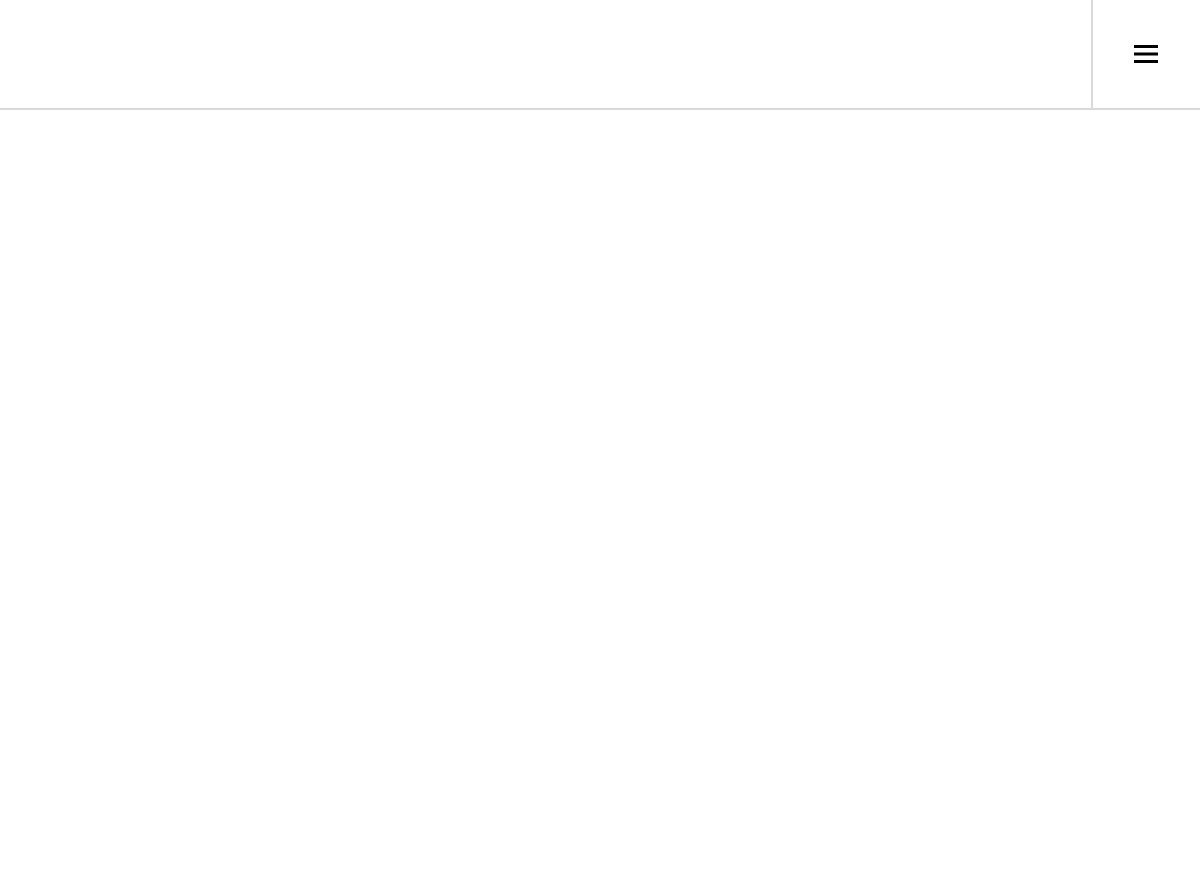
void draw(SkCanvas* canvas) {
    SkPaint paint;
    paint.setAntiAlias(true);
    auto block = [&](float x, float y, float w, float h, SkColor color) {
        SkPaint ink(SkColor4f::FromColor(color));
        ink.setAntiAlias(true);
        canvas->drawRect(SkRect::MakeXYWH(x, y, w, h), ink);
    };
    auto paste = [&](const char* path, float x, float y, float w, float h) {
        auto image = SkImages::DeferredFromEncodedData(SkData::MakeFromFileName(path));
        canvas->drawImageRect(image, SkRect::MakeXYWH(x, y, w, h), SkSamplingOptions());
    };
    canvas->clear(SK_ColorWHITE);
    block(0, 108, 1200, 2, SkColorSetRGB(217, 217, 217));
    block(1091, 0, 2, 108, SkColorSetRGB(217, 217, 217));
    paste("pic1.png", 1134, 45, 24, 18);
}
